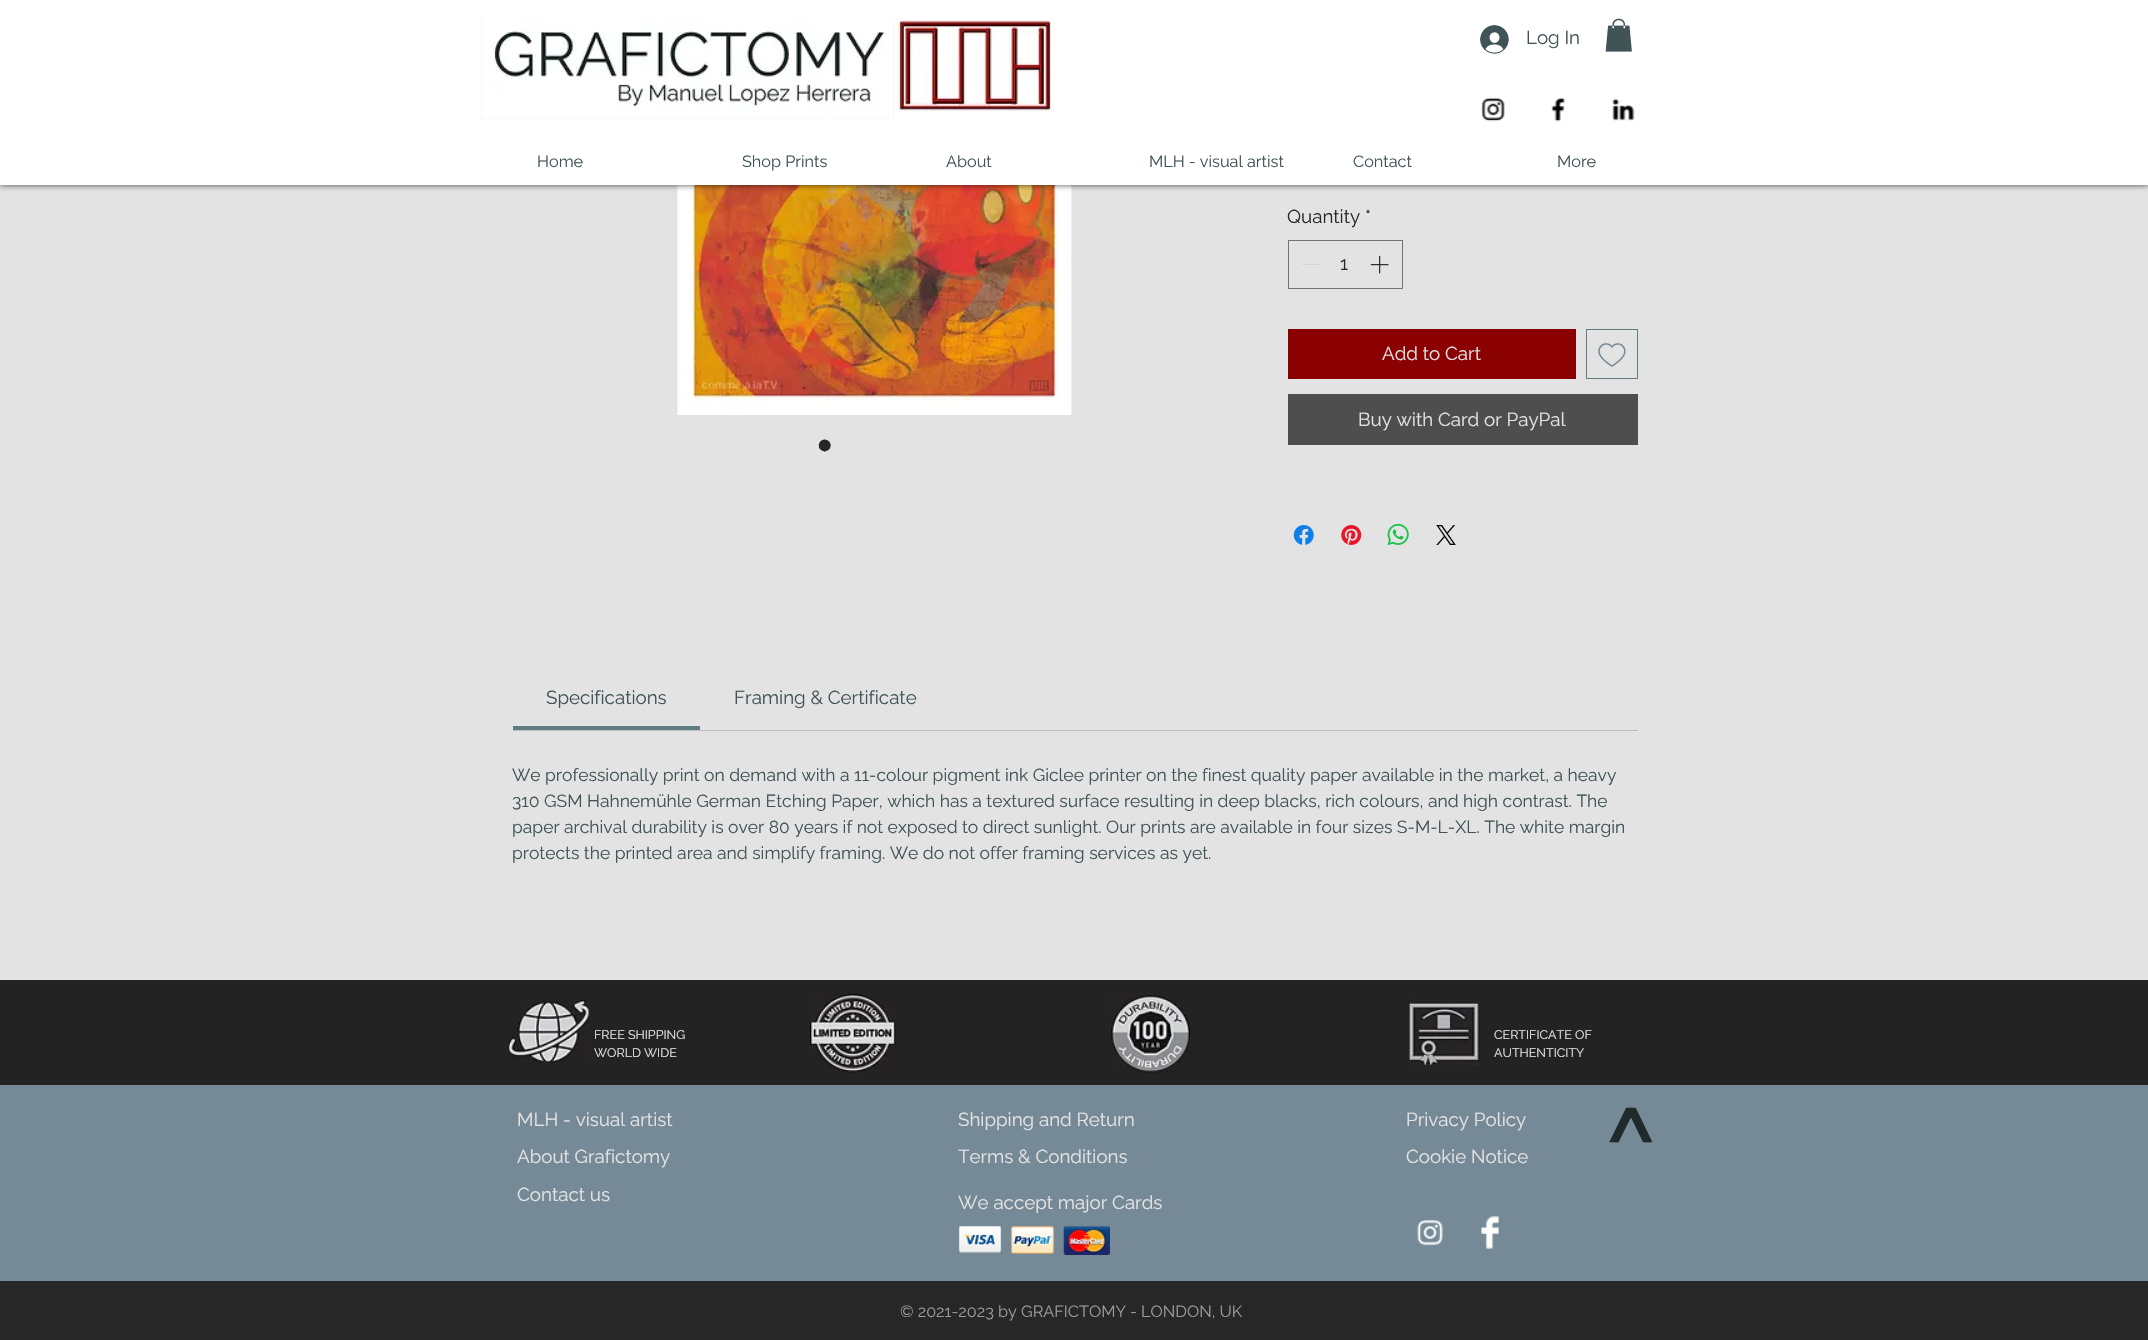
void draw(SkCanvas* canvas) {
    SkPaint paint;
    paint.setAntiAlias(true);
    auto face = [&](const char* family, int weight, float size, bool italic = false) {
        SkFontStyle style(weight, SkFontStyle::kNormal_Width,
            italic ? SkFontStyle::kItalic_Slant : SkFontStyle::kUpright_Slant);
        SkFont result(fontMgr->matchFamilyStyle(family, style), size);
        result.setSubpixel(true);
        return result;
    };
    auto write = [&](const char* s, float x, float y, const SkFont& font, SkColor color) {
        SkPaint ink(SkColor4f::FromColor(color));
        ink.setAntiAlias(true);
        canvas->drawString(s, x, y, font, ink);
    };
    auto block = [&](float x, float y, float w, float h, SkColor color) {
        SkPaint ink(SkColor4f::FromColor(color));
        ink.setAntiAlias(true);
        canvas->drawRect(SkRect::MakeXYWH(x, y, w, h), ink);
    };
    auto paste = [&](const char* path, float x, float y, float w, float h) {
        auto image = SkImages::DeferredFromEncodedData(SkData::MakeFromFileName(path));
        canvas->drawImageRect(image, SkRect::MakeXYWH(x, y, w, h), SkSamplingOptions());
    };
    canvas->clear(SkColorSetRGB(227, 227, 227));
    paste("pic14.png", 677, 185, 395, 230);
    paint.setColor(SkColorSetARGB(179, 0, 0, 0));
    paint.setMaskFilter(SkMaskFilter::MakeBlur(kNormal_SkBlurStyle, 3));
    canvas->drawRect(SkRect::MakeXYWH(0, 0, 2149, 185), paint);
    paint.setMaskFilter(nullptr);
    block(0, 0, 2148, 185, SK_ColorWHITE);
    block(481, 18, 413, 101, SkColorSetRGB(227, 227, 227));
    paste("pic1.png", 481, 18, 413, 101);
    paste("pic2.png", 894, 18, 161, 95);
    paste("pic3.png", 1480, 25, 29, 29);
    auto kFont1 = face("Raleway", 400, 18.75f);
    write("Log In", 1526, 44, kFont1, SkColorSetRGB(64, 83, 87));
    paste("pic4.png", 1605, 18, 27, 34);
    paste("pic5.png", 1481, 97, 24, 25);
    paste("pic6.png", 1551, 97, 15, 25);
    paste("pic7.png", 1612, 98, 23, 23);
    auto kFont2 = face("Raleway", 400, 16.25f);
    write("Home", 537, 167, kFont2, SkColorSetRGB(64, 83, 87));
    write("Shop Prints", 742, 167, kFont2, SkColorSetRGB(64, 83, 87));
    write("About", 946, 167, kFont2, SkColorSetRGB(64, 83, 87));
    write("MLH - visual artist", 1149, 167, kFont2, SkColorSetRGB(64, 83, 87));
    write("Contact", 1353, 167, kFont2, SkColorSetRGB(64, 83, 87));
    write("More", 1557, 167, kFont2, SkColorSetRGB(64, 83, 87));
    write("Quantity *", 1287, 223, kFont1, SkColorSetRGB(39, 39, 39));
    paint.setStyle(SkPaint::kStroke_Style);
    paint.setStrokeWidth(1);
    paint.setColor(SkColorSetRGB(114, 114, 114));
    canvas->drawRect(SkRect::MakeXYWH(1288.5f, 240.5f, 114, 48), paint);
    block(1302, 264, 18, 1, SkColorSetRGB(213, 213, 213));
    write("1", 1340, 270, kFont1, SkColorSetRGB(39, 39, 39));
    paste("pic8.png", 1370, 255, 19, 19);
    block(1288, 329, 288, 50, SkColorSetRGB(139, 0, 0));
    write("Add to Cart", 1382, 360, kFont1, SkColorSetRGB(227, 227, 227));
    paint.setColor(SkColorSetRGB(96, 125, 130));
    canvas->drawRect(SkRect::MakeXYWH(1586.5f, 329.5f, 51, 49), paint);
    paste("pic9.png", 1598, 343, 28, 24);
    block(1288, 394, 350, 51, SkColorSetRGB(78, 78, 78));
    write("Buy with Card or PayPal", 1358, 426, kFont1, SkColorSetRGB(227, 227, 227));
    paste("pic10.png", 1293, 525, 21, 20);
    paste("pic11.png", 1341, 525, 21, 20);
    paste("pic12.png", 1387, 523, 22, 23);
    paste("pic13.png", 1436, 525, 20, 20);
    auto kFont3 = face("Liberation Sans", 400, 44);
    write("•", 817, 460, kFont3, SkColorSetRGB(39, 39, 39));
    block(513, 730, 1125, 1, SkColorSetRGB(189, 189, 189));
    block(513, 726, 187, 4, SkColorSetRGB(96, 125, 130));
    write("Specifications", 546, 704, kFont1, SkColorSetRGB(64, 83, 87));
    write("Framing & Certificate", 734, 704, kFont1, SkColorSetRGB(64, 83, 87));
    auto kFont4 = face("Raleway", 400, 17.5f);
    write("We professionally print on demand with a 11-colour pigment ink Giclee printer on the finest quality paper available in the market, a heavy", 512, 781, kFont4, SkColorSetRGB(64, 83, 87));
    write("310 GSM Hahnemühle German Etching Paper, which has a textured surface resulting in deep blacks, rich colours, and high contrast. The", 512, 807, kFont4, SkColorSetRGB(64, 83, 87));
    write("paper archival durability is over 80 years if not exposed to direct sunlight. Our prints are available in four sizes S-M-L-XL. The white margin", 512, 833, kFont4, SkColorSetRGB(64, 83, 87));
    write("protects the printed area and simplify framing. We do not offer framing services as yet.", 512, 859, kFont4, SkColorSetRGB(64, 83, 87));
    block(0, 980, 2148, 105, SkColorSetRGB(36, 35, 35));
    paste("pic15.png", 508, 1000, 81, 65);
    auto kFont5 = face("Raleway", 400, 12.5f);
    write("FREE SHIPPING", 594, 1039, kFont5, SkColorSetRGB(227, 227, 227));
    write("WORLD WIDE", 594, 1057, kFont5, SkColorSetRGB(227, 227, 227));
    paste("pic16.png", 810, 993, 86, 81);
    paste("pic17.png", 1110, 993, 80, 80);
    paste("pic18.png", 1407, 998, 73, 68);
    write("CERTIFICATE OF", 1494, 1039, kFont5, SkColorSetRGB(227, 227, 227));
    write("AUTHENTICITY", 1494, 1057, kFont5, SkColorSetRGB(227, 227, 227));
    block(0, 1085, 2148, 196, SkColorSetRGB(117, 137, 150));
    write("MLH - visual artist", 517, 1126, kFont1, SkColorSetRGB(227, 227, 227));
    write("About Grafictomy", 517, 1163, kFont1, SkColorSetRGB(227, 227, 227));
    write("Contact us", 517, 1201, kFont1, SkColorSetRGB(227, 227, 227));
    write("Shipping and Return", 958, 1126, kFont1, SkColorSetRGB(227, 227, 227));
    write("Terms & Conditions", 958, 1163, kFont1, SkColorSetRGB(227, 227, 227));
    write("Privacy Policy", 1406, 1126, kFont1, SkColorSetRGB(227, 227, 227));
    write("Cookie Notice", 1406, 1163, kFont1, SkColorSetRGB(227, 227, 227));
    auto kFont6 = face("Raleway", 700, 85);
    write("^", 1606, 1168, kFont6, SkColorSetRGB(32, 42, 43));
    write("We accept major Cards", 958, 1209, kFont1, SkColorSetRGB(227, 227, 227));
    paste("pic19.png", 958, 1226, 44, 27);
    paste("pic20.png", 1011, 1226, 43, 28);
    paste("pic21.png", 1063, 1226, 47, 29);
    paste("pic22.png", 1417, 1219, 26, 27);
    paste("pic23.png", 1481, 1216, 18, 33);
    block(0, 1281, 2148, 59, SkColorSetRGB(39, 39, 39));
    write("© 2021-2023 by GRAFICTOMY - LONDON, UK", 900, 1317, kFont2, SkColorSetRGB(156, 156, 156));
}
